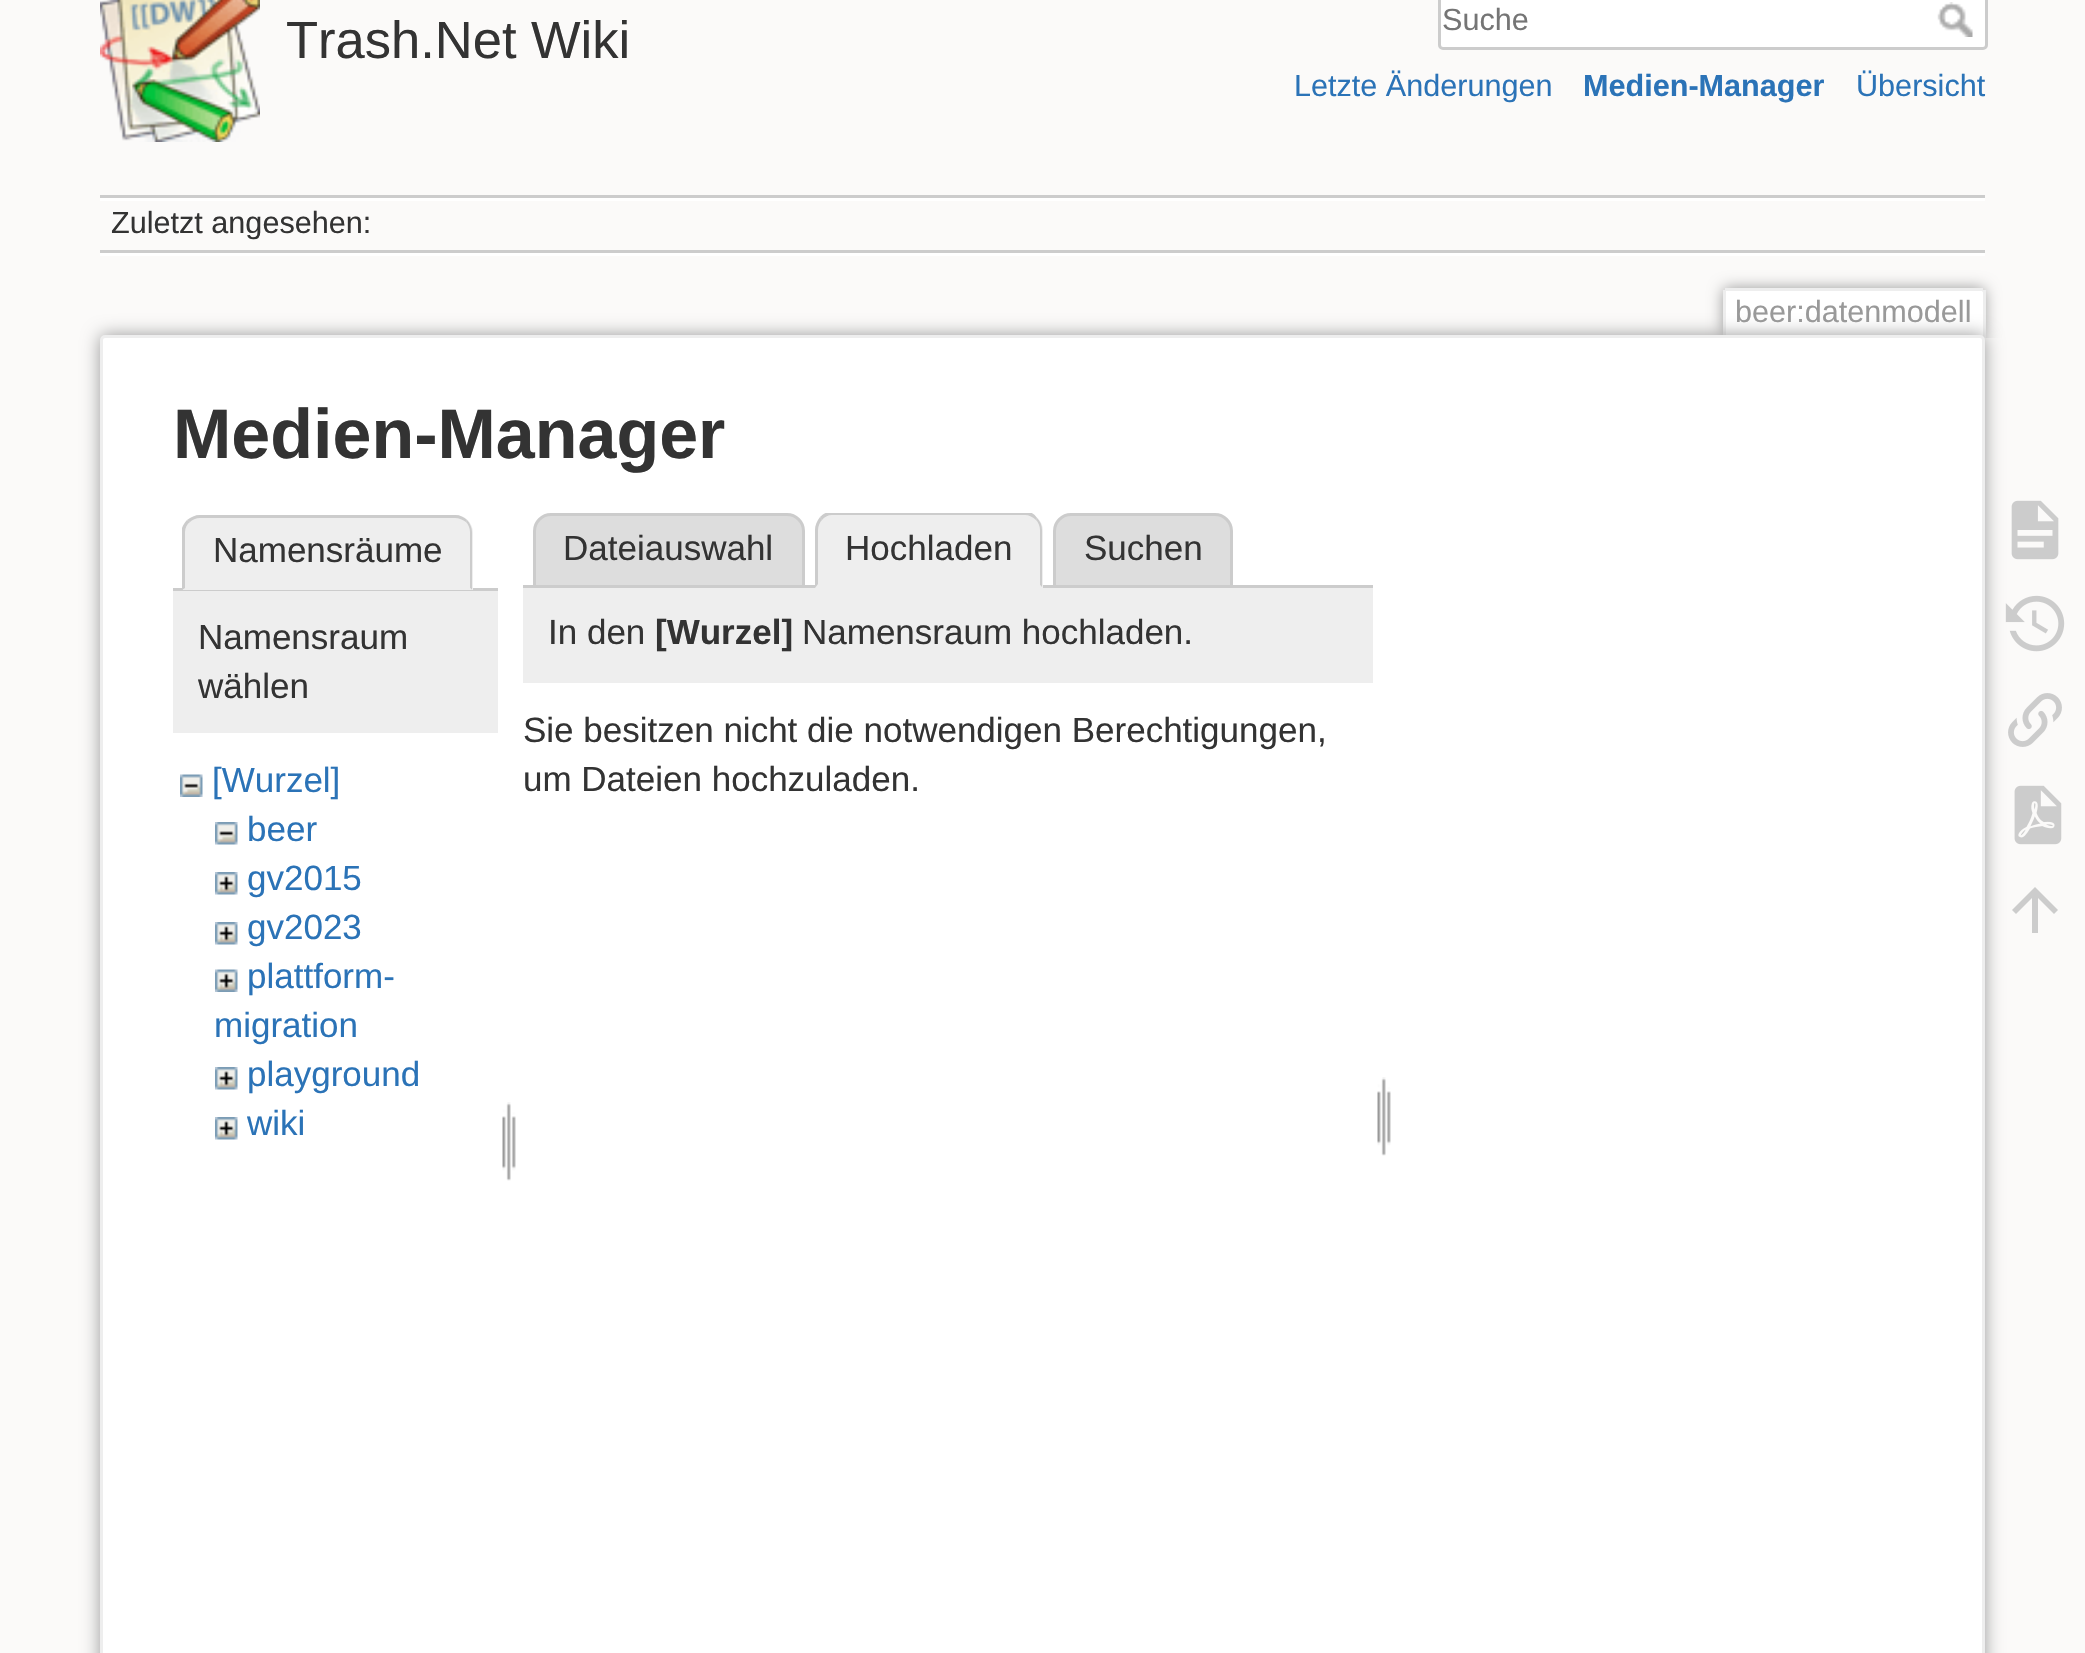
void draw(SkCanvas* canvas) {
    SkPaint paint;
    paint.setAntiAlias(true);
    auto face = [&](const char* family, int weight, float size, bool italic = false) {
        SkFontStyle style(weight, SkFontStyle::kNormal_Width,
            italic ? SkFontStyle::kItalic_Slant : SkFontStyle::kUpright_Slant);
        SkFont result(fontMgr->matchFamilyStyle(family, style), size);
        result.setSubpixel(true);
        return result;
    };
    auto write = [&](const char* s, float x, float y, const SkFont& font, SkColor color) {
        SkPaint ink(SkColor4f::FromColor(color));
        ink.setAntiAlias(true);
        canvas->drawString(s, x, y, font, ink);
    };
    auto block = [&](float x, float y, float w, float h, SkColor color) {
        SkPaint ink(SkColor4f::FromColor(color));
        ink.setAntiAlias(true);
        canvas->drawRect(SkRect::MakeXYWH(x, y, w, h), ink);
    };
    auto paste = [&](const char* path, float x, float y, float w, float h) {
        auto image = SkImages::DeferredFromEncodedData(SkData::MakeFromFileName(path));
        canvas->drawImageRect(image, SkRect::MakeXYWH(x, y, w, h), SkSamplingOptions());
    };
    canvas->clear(SkColorSetRGB(251, 250, 249));
    paste("pic1.png", 100, 0, 160, 142);
    auto kFont1 = face("Liberation Sans", 400, 52.5f);
    write("Trash.Net Wiki", 286, 58, kFont1, SkColorSetRGB(51, 51, 51));
    paint.setColor(SK_ColorWHITE);
    canvas->drawRoundRect(SkRect::MakeXYWH(1439.5f, -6.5f, 547, 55), 3.5f, 3.5f, paint);
    paint.setStyle(SkPaint::kStroke_Style);
    paint.setStrokeWidth(3);
    paint.setColor(SkColorSetRGB(204, 204, 204));
    canvas->drawRoundRect(SkRect::MakeXYWH(1439.5f, -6.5f, 547, 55), 3.5f, 3.5f, paint);
    auto kFont2 = face("Liberation Sans", 400, 30.6f);
    write("Suche", 1442, 30, kFont2, SkColorSetRGB(117, 117, 117));
    paste("pic2.png", 1937, 2, 36, 35);
    write("Letzte Änderungen", 1294, 96, kFont2, SkColorSetRGB(43, 115, 183));
    auto kFont3 = face("Liberation Sans", 700, 30.6f);
    write("Medien-Manager", 1583, 96, kFont3, SkColorSetRGB(43, 115, 183));
    write("Übersicht", 1856, 96, kFont2, SkColorSetRGB(43, 115, 183));
    block(100, 195, 1885, 3, SkColorSetRGB(204, 204, 204));
    block(100, 253, 1885, 3, SK_ColorWHITE);
    block(100, 198, 1885, 3, SK_ColorWHITE);
    block(100, 250, 1885, 3, SkColorSetRGB(204, 204, 204));
    write("Zuletzt angesehen:", 111, 233, kFont2, SkColorSetRGB(51, 51, 51));
    canvas->save();
    canvas->clipRect(SkRect::MakeXYWH(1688, 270, 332, 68));
    paint.setStyle(SkPaint::kFill_Style);
    paint.setColor(SkColorSetRGB(153, 153, 153));
    paint.setMaskFilter(SkMaskFilter::MakeBlur(kNormal_SkBlurStyle, 7.5f));
    canvas->drawRoundRect(SkRect::MakeXYWH(1723, 288, 262, 50), 5, 5, paint);
    paint.setMaskFilter(nullptr);
    canvas->restore();
    paint.setColor(SK_ColorWHITE);
    canvas->drawPath(SkPathBuilder().moveTo(1727.5f, 290).lineTo(1980.5f, 290).cubicTo(1982, 290, 1983, 291, 1983, 292.5f).lineTo(1983, 338).lineTo(1725, 338).lineTo(1725, 292.5f).cubicTo(1725, 291, 1726, 290, 1727.5f, 290).close().detach(), paint);
    block(1725, 288, 258, 3, SkColorSetRGB(238, 238, 238));
    block(1983, 290, 3, 48, SkColorSetRGB(238, 238, 238));
    block(1723, 290, 3, 48, SkColorSetRGB(238, 238, 238));
    write("beer:datenmodell", 1735, 322, kFont2, SkColorSetRGB(153, 153, 153));
    paint.setColor(SkColorSetRGB(153, 153, 153));
    paint.setMaskFilter(SkMaskFilter::MakeBlur(kNormal_SkBlurStyle, 9));
    canvas->drawRoundRect(SkRect::MakeXYWH(100, 335, 1885, 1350), 5, 5, paint);
    paint.setMaskFilter(nullptr);
    paint.setColor(SK_ColorWHITE);
    canvas->drawRoundRect(SkRect::MakeXYWH(101.5f, 336.5f, 1882, 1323), 3.5f, 3.5f, paint);
    paint.setStyle(SkPaint::kStroke_Style);
    paint.setColor(SkColorSetRGB(238, 238, 238));
    canvas->drawRoundRect(SkRect::MakeXYWH(101.5f, 336.5f, 1882, 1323), 3.5f, 3.5f, paint);
    auto kFont4 = face("Liberation Sans", 700, 70);
    write("Medien-Manager", 173, 458, kFont4, SkColorSetRGB(51, 51, 51));
    block(173, 588, 325, 3, SkColorSetRGB(204, 204, 204));
    paint.setStyle(SkPaint::kFill_Style);
    canvas->drawPath(SkPathBuilder().moveTo(201, 515).lineTo(455, 515).cubicTo(465, 515, 473, 523, 473, 533).lineTo(473, 590).lineTo(183, 590).lineTo(183, 533).cubicTo(183, 523, 191, 515, 201, 515).close().detach(), paint);
    paint.setColor(SkColorSetRGB(204, 204, 204));
    canvas->drawPath(SkPathBuilder().moveTo(200, 515).cubicTo(195, 515, 191, 517, 187, 520).lineTo(190, 522).cubicTo(192, 520, 196, 518, 200, 518).lineTo(455, 518).cubicTo(459, 518, 463, 520, 466, 522).lineTo(467, 520).cubicTo(464, 517, 460, 515, 455, 515).close().detach(), paint);
    canvas->drawPath(SkPathBuilder().moveTo(467, 520).cubicTo(470, 523, 472, 528, 472, 532).lineTo(472, 590).lineTo(470, 588).lineTo(470, 532).cubicTo(470, 528, 468, 524, 466, 522).close().detach(), paint);
    paint.setColor(SkColorSetRGB(238, 238, 238));
    canvas->drawPath(SkPathBuilder().moveTo(182, 590).lineTo(472, 590).lineTo(470, 588).lineTo(185, 588).close().detach(), paint);
    paint.setColor(SkColorSetRGB(204, 204, 204));
    canvas->drawPath(SkPathBuilder().moveTo(182, 590).lineTo(182, 528).cubicTo(183, 525, 185, 522, 187, 520).lineTo(190, 522).cubicTo(187, 524, 185, 528, 185, 532).lineTo(185, 588).close().detach(), paint);
    auto kFont5 = face("Liberation Sans", 400, 35);
    write("Namensräume", 213, 562, kFont5, SkColorSetRGB(51, 51, 51));
    block(173, 591, 325, 142, SkColorSetRGB(238, 238, 238));
    write("Namensraum", 198, 649, kFont5, SkColorSetRGB(51, 51, 51));
    write("wählen", 198, 698, kFont5, SkColorSetRGB(51, 51, 51));
    paste("pic3.png", 180, 774, 23, 23);
    write("[Wurzel]", 212, 792, kFont5, SkColorSetRGB(43, 115, 183));
    paste("pic4.png", 215, 822, 23, 23);
    write("beer", 247, 841, kFont5, SkColorSetRGB(43, 115, 183));
    paste("pic5.png", 215, 872, 23, 23);
    write("gv2015", 247, 890, kFont5, SkColorSetRGB(43, 115, 183));
    paste("pic5.png", 215, 922, 23, 23);
    write("gv2023", 247, 939, kFont5, SkColorSetRGB(43, 115, 183));
    paste("pic6.png", 215, 969, 23, 23);
    write("plattform-", 247, 988, kFont5, SkColorSetRGB(43, 115, 183));
    write("migration", 214, 1037, kFont5, SkColorSetRGB(43, 115, 183));
    paste("pic5.png", 215, 1067, 23, 23);
    write("playground", 247, 1086, kFont5, SkColorSetRGB(43, 115, 183));
    paste("pic5.png", 215, 1117, 23, 23);
    write("wiki", 247, 1135, kFont5, SkColorSetRGB(43, 115, 183));
    paste("pic7.png", 502, 1102, 14, 79);
    paint.setColor(SkColorSetRGB(221, 221, 221));
    canvas->drawPath(SkPathBuilder().moveTo(551, 514.5f).lineTo(787, 514.5f).cubicTo(796, 514.5f, 803.5f, 522, 803.5f, 531).lineTo(803.5f, 586.5f).lineTo(534.5f, 586.5f).lineTo(534.5f, 531).cubicTo(534.5f, 522, 542, 514.5f, 551, 514.5f).close().detach(), paint);
    paint.setStyle(SkPaint::kStroke_Style);
    paint.setColor(SkColorSetRGB(204, 204, 204));
    canvas->drawPath(SkPathBuilder().moveTo(551, 514.5f).lineTo(787, 514.5f).cubicTo(796, 514.5f, 803.5f, 522, 803.5f, 531).lineTo(803.5f, 586.5f).lineTo(534.5f, 586.5f).lineTo(534.5f, 531).cubicTo(534.5f, 522, 542, 514.5f, 551, 514.5f).close().detach(), paint);
    write("Dateiauswahl", 563, 560, kFont5, SkColorSetRGB(51, 51, 51));
    paint.setStyle(SkPaint::kFill_Style);
    paint.setColor(SkColorSetRGB(221, 221, 221));
    canvas->drawPath(SkPathBuilder().moveTo(1071, 514.5f).lineTo(1215, 514.5f).cubicTo(1224, 514.5f, 1231.5f, 522, 1231.5f, 531).lineTo(1231.5f, 586.5f).lineTo(1054.5f, 586.5f).lineTo(1054.5f, 531).cubicTo(1054.5f, 522, 1062, 514.5f, 1071, 514.5f).close().detach(), paint);
    paint.setStyle(SkPaint::kStroke_Style);
    paint.setColor(SkColorSetRGB(204, 204, 204));
    canvas->drawPath(SkPathBuilder().moveTo(1071, 514.5f).lineTo(1215, 514.5f).cubicTo(1224, 514.5f, 1231.5f, 522, 1231.5f, 531).lineTo(1231.5f, 586.5f).lineTo(1054.5f, 586.5f).lineTo(1054.5f, 531).cubicTo(1054.5f, 522, 1062, 514.5f, 1071, 514.5f).close().detach(), paint);
    block(523, 585, 850, 3, SkColorSetRGB(204, 204, 204));
    paint.setStyle(SkPaint::kFill_Style);
    paint.setColor(SkColorSetRGB(238, 238, 238));
    canvas->drawPath(SkPathBuilder().moveTo(833, 513).lineTo(1025, 513).cubicTo(1035, 513, 1043, 521, 1043, 531).lineTo(1043, 588).lineTo(815, 588).lineTo(815, 531).cubicTo(815, 521, 823, 513, 833, 513).close().detach(), paint);
    canvas->save();
    canvas->clipRect(SkRect::MakeXYWH(523, 513, 850, 75));
    paint.setColor(SkColorSetRGB(204, 204, 204));
    canvas->drawPath(SkPathBuilder().moveTo(832, 515).cubicTo(828, 515, 824, 517, 822, 520).lineTo(820, 517).cubicTo(822, 515, 825, 513, 828, 512).lineTo(1029, 512).cubicTo(1033, 513, 1035, 515, 1037, 518).lineTo(1036, 520).cubicTo(1033, 517, 1029, 515, 1025, 515).close().detach(), paint);
    canvas->restore();
    canvas->drawPath(SkPathBuilder().moveTo(1037, 518).cubicTo(1040, 521, 1042, 525, 1042, 530).lineTo(1042, 587).lineTo(1040, 585).lineTo(1040, 530).cubicTo(1040, 526, 1038, 522, 1036, 520).close().detach(), paint);
    paint.setColor(SkColorSetRGB(238, 238, 238));
    canvas->drawPath(SkPathBuilder().moveTo(1042, 588).lineTo(815, 588).lineTo(818, 584).lineTo(818, 585).lineTo(1040, 585).close().detach(), paint);
    paint.setColor(SkColorSetRGB(204, 204, 204));
    canvas->drawPath(SkPathBuilder().moveTo(815, 588).lineTo(818, 584).lineTo(818, 530).cubicTo(818, 526, 820, 522, 822, 520).lineTo(820, 517).cubicTo(817, 521, 815, 525, 815, 530).close().detach(), paint);
    write("Hochladen", 845, 560, kFont5, SkColorSetRGB(51, 51, 51));
    write("Suchen", 1084, 560, kFont5, SkColorSetRGB(51, 51, 51));
    block(523, 588, 850, 95, SkColorSetRGB(238, 238, 238));
    write("In den", 548, 644, kFont5, SkColorSetRGB(51, 51, 51));
    auto kFont6 = face("Liberation Sans", 700, 35);
    write("[Wurzel]", 655, 644, kFont6, SkColorSetRGB(51, 51, 51));
    write("Namensraum hochladen.", 802, 644, kFont5, SkColorSetRGB(51, 51, 51));
    write("Sie besitzen nicht die notwendigen Berechtigungen,", 523, 742, kFont5, SkColorSetRGB(51, 51, 51));
    write("um Dateien hochzuladen.", 523, 791, kFont5, SkColorSetRGB(51, 51, 51));
    paste("pic8.png", 1377, 1077, 14, 79);
    paste("pic9.png", 2011, 500, 48, 60);
    paste("pic10.png", 2005, 595, 60, 57);
    paste("pic11.png", 2008, 693, 54, 54);
    paste("pic12.png", 2014, 785, 48, 60);
    canvas->drawPath(SkPathBuilder().moveTo(2038, 933).lineTo(2032, 933).lineTo(2032, 898).lineTo(2016, 914).lineTo(2012, 910).lineTo(2035, 887).lineTo(2058, 910).lineTo(2054, 914).lineTo(2038, 898).close().detach(), paint);
}
